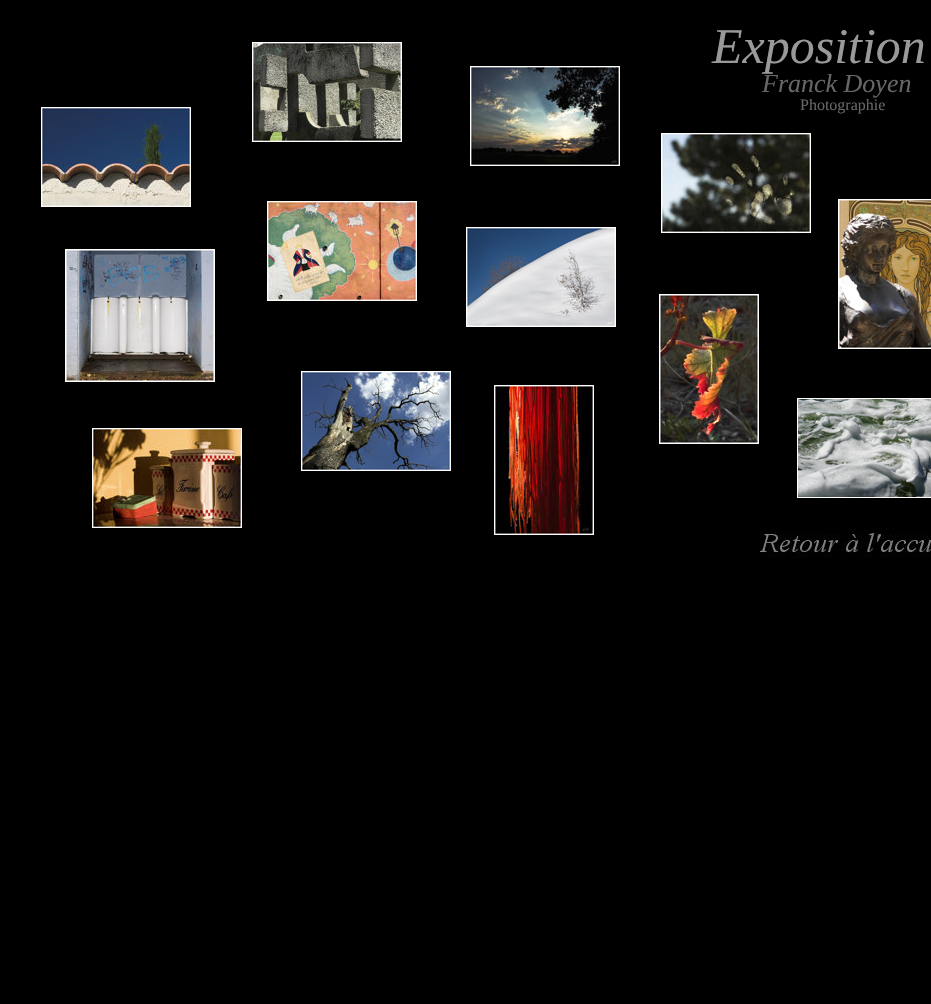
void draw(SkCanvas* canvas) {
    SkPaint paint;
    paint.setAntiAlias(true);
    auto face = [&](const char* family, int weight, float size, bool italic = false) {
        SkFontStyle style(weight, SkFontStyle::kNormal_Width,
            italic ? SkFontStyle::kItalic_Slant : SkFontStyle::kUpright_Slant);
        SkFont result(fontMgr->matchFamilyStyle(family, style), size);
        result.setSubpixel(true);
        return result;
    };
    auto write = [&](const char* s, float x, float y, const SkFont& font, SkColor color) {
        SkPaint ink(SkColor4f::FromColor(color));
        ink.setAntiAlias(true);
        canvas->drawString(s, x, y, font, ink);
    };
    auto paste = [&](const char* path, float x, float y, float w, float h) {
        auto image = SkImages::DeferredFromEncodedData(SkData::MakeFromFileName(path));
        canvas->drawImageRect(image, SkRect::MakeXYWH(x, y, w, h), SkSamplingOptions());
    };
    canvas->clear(SK_ColorBLACK);
    paste("pic1.png", 252, 42, 150, 100);
    paste("pic2.png", 470, 66, 150, 100);
    auto kFont1 = face("Liberation Serif", 400, 50, true);
    write("Exposition", 712, 63, kFont1, SkColorSetRGB(153, 153, 153));
    auto kFont2 = face("Liberation Serif", 400, 26, true);
    write("Franck Doyen", 762, 92, kFont2, SkColorSetRGB(102, 102, 102));
    paste("pic3.png", 41, 107, 150, 100);
    paste("pic4.png", 661, 133, 150, 100);
    auto kFont3 = face("Liberation Serif", 400, 16);
    write("Photographie", 800, 110, kFont3, SkColorSetRGB(102, 102, 102));
    paste("pic5.png", 65, 249, 150, 133);
    paste("pic6.png", 267, 201, 150, 100);
    paste("pic7.png", 466, 227, 150, 100);
    paste("pic8.png", 659, 294, 100, 150);
    paste("pic9.png", 838, 199, 93, 150);
    paste("pic10.png", 92, 428, 150, 100);
    paste("pic11.png", 301, 371, 150, 100);
    paste("pic12.png", 494, 385, 100, 150);
    paste("pic13.png", 797, 398, 134, 100);
    paste("pic14.png", 760, 526, 171, 32);
}
